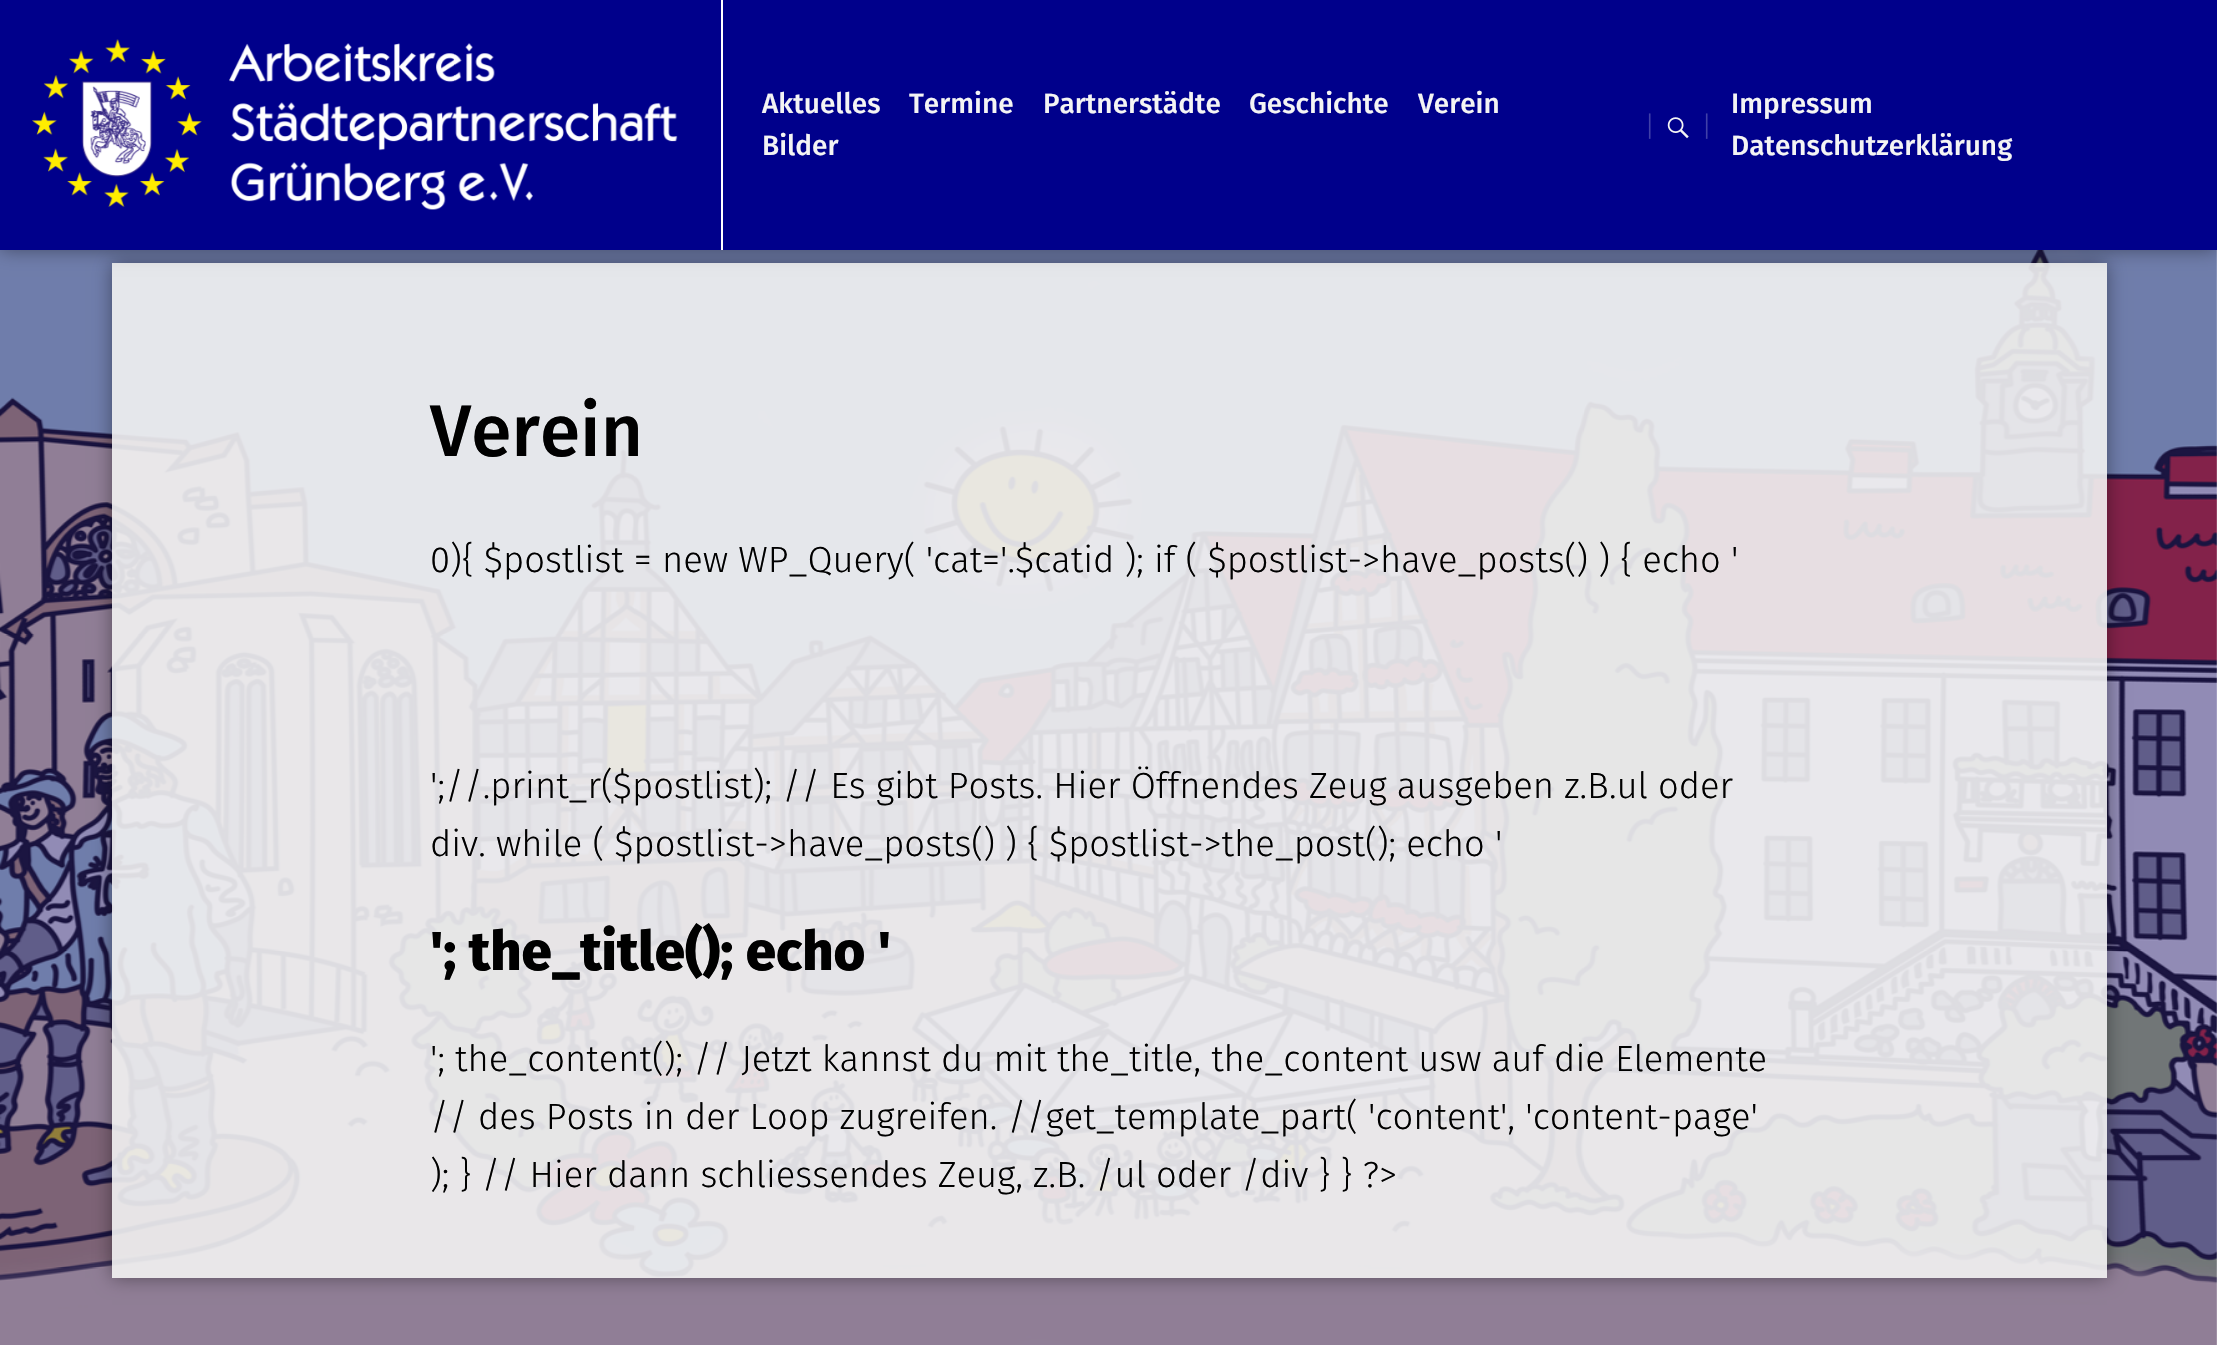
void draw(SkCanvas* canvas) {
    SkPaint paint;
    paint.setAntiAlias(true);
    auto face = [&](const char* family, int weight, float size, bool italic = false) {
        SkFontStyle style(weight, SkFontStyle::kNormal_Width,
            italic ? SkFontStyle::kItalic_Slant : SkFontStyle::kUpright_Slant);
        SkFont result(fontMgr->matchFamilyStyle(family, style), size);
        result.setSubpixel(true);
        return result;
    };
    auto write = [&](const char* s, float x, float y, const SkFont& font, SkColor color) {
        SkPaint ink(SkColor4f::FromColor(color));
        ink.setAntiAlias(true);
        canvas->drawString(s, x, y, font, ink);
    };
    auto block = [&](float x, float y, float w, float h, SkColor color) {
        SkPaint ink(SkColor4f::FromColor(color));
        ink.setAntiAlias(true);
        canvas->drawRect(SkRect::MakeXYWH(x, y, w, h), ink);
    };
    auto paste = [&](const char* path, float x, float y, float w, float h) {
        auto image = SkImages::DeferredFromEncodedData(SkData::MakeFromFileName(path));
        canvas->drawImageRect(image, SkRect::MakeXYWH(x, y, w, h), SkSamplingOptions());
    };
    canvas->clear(SK_ColorWHITE);
    paste("pic1.png", 0, 250, 2217, 1095);
    canvas->save();
    canvas->clipPath(SkPathBuilder(SkPathFillType::kEvenOdd).moveTo(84, 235).lineTo(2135, 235).lineTo(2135, 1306).lineTo(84, 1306).close().moveTo(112, 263).lineTo(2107, 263).lineTo(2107, 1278).lineTo(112, 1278).close().detach(), true);
    paint.setColor(SkColorSetARGB(102, 0, 0, 0));
    paint.setMaskFilter(SkMaskFilter::MakeBlur(kNormal_SkBlurStyle, 9));
    canvas->drawRect(SkRect::MakeXYWH(112, 263, 1995, 1015), paint);
    paint.setMaskFilter(nullptr);
    canvas->restore();
    block(112, 263, 1995, 1015, SkColorSetARGB(230, 242, 242, 242));
    paint.setMaskFilter(SkMaskFilter::MakeBlur(kNormal_SkBlurStyle, 9));
    canvas->drawRect(SkRect::MakeXYWH(0, 0, 2217, 250), paint);
    paint.setMaskFilter(nullptr);
    block(0, 0, 2217, 250, SkColorSetRGB(0, 0, 139));
    block(721, 0, 2, 250, SK_ColorWHITE);
    paste("pic2.png", 32, 39, 646, 171);
    auto kFont1 = face("Fira Sans", 500, 28);
    write("Aktuelles", 762, 113, kFont1, SkColorSetRGB(244, 244, 244));
    write("Termine", 909, 113, kFont1, SkColorSetRGB(244, 244, 244));
    write("Partnerstädte", 1043, 113, kFont1, SkColorSetRGB(244, 244, 244));
    write("Geschichte", 1249, 113, kFont1, SkColorSetRGB(244, 244, 244));
    write("Verein", 1418, 113, kFont1, SkColorSetRGB(244, 244, 244));
    write("Bilder", 762, 155, kFont1, SkColorSetRGB(244, 244, 244));
    auto kFont2 = face("Fira Sans", 300, 28);
    write("|", 1644, 136, kFont2, SkColorSetRGB(64, 64, 168));
    paste("pic3.png", 1667, 117, 22, 22);
    write("|", 1701, 136, kFont2, SkColorSetRGB(64, 64, 168));
    write("Impressum", 1731, 113, kFont1, SkColorSetRGB(244, 244, 244));
    write("Datenschutzerklärung", 1731, 155, kFont1, SkColorSetRGB(244, 244, 244));
    auto kFont3 = face("Fira Sans", 500, 73);
    write("Verein", 430, 456, kFont3, SK_ColorBLACK);
    auto kFont4 = face("Fira Sans", 300, 36.4f);
    write("0){ $postlist = new WP_Query( 'cat='.$catid ); if ( $postlist->have_posts() ) { echo '", 430, 572, kFont4, SK_ColorBLACK);
    write("';//.print_r($postlist); // Es gibt Posts. Hier Öffnendes Zeug ausgeben z.B.ul oder", 430, 798, kFont4, SK_ColorBLACK);
    write("div. while ( $postlist->have_posts() ) { $postlist->the_post(); echo '", 430, 856, kFont4, SK_ColorBLACK);
    auto kFont5 = face("Fira Sans", 800, 54.5f);
    write("'; the_title(); echo '", 430, 970, kFont5, SK_ColorBLACK);
    write("'; the_content(); // Jetzt kannst du mit the_title, the_content usw auf die Elemente", 430, 1071, kFont4, SK_ColorBLACK);
    write("// des Posts in der Loop zugreifen. //get_template_part( 'content', 'content-page'", 430, 1129, kFont4, SK_ColorBLACK);
    write("); } // Hier dann schliessendes Zeug, z.B. /ul oder /div } } ?>", 430, 1187, kFont4, SK_ColorBLACK);
}
